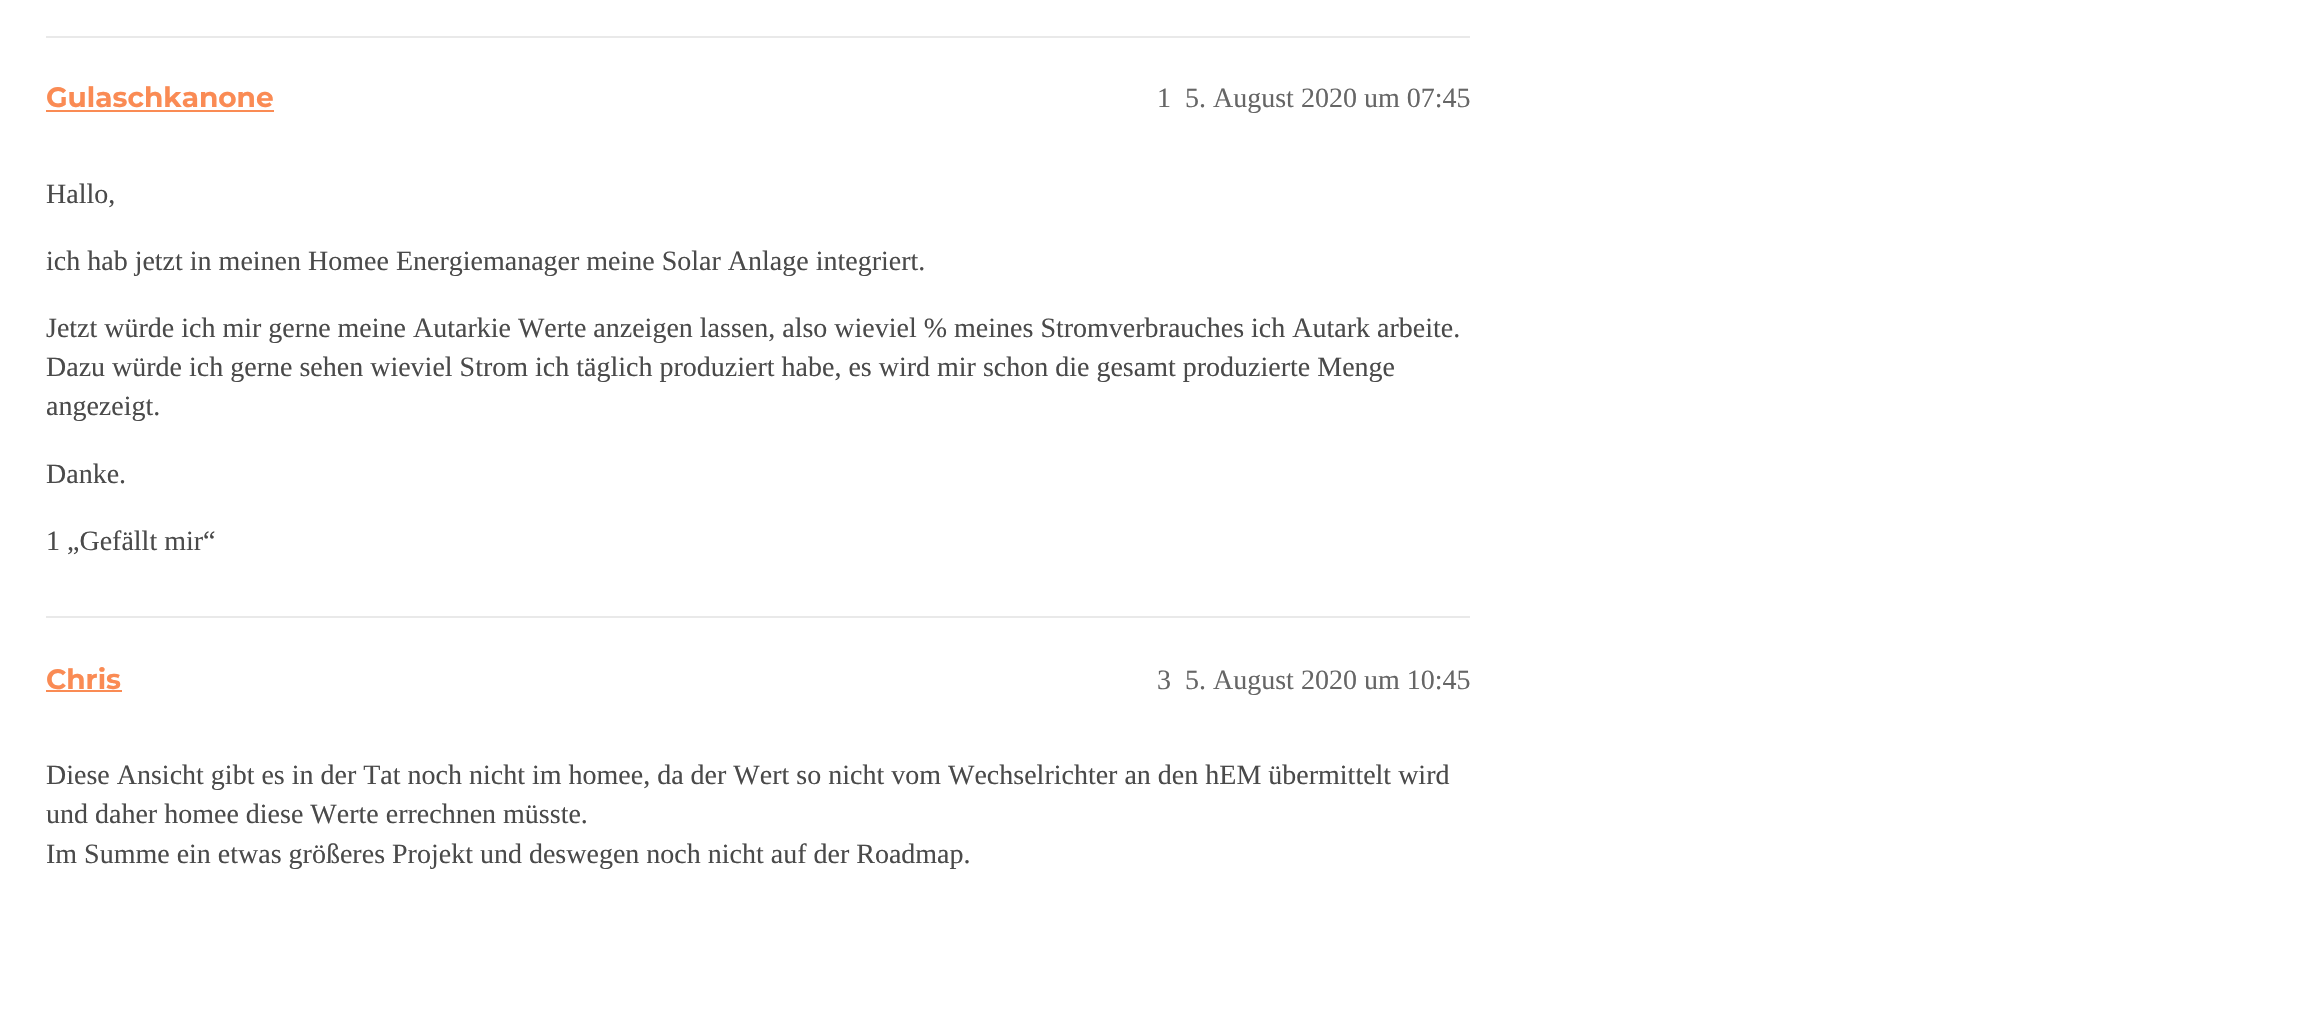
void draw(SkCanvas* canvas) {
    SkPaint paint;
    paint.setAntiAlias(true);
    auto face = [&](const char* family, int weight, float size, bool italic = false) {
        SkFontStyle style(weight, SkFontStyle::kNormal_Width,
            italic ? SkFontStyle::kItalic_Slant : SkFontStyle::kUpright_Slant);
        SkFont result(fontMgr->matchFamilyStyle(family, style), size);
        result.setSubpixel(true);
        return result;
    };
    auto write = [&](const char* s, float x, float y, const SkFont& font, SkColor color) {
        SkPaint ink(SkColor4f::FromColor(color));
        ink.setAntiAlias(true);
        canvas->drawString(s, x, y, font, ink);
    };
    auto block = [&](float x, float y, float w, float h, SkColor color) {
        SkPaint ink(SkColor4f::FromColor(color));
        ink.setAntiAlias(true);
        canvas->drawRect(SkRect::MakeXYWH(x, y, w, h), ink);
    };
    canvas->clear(SK_ColorWHITE);
    block(46, 36, 1424, 2, SkColorSetRGB(233, 233, 233));
    auto kFont1 = face("Montserrat", 700, 28);
    write("Gulaschkanone", 46, 107, kFont1, SkColorSetRGB(250, 139, 84));
    block(46, 110, 228, 2, SkColorSetRGB(250, 139, 84));
    auto kFont2 = face("Liberation Serif", 400, 28);
    write("1", 1157, 107, kFont2, SkColorSetRGB(102, 102, 102));
    write("5. August 2020 um 07:45", 1185, 107, kFont2, SkColorSetRGB(102, 102, 102));
    write("Hallo,", 46, 203, kFont2, SkColorSetRGB(74, 74, 74));
    write("ich hab jetzt in meinen Homee Energiemanager meine Solar Anlage integriert.", 46, 270, kFont2, SkColorSetRGB(74, 74, 74));
    write("Jetzt würde ich mir gerne meine Autarkie Werte anzeigen lassen, also wieviel % meines Stromverbrauches ich Autark arbeite.", 46, 337, kFont2, SkColorSetRGB(74, 74, 74));
    write("Dazu würde ich gerne sehen wieviel Strom ich täglich produziert habe, es wird mir schon die gesamt produzierte Menge", 46, 376, kFont2, SkColorSetRGB(74, 74, 74));
    write("angezeigt.", 46, 415, kFont2, SkColorSetRGB(74, 74, 74));
    write("Danke.", 46, 483, kFont2, SkColorSetRGB(74, 74, 74));
    write("1 „Gefällt mir“", 46, 550, kFont2, SkColorSetRGB(74, 74, 74));
    block(46, 616, 1424, 2, SkColorSetRGB(233, 233, 233));
    write("Chris", 46, 689, kFont1, SkColorSetRGB(250, 139, 84));
    block(46, 690, 76, 2, SkColorSetRGB(250, 139, 84));
    write("3", 1157, 689, kFont2, SkColorSetRGB(102, 102, 102));
    write("5. August 2020 um 10:45", 1185, 689, kFont2, SkColorSetRGB(102, 102, 102));
    write("Diese Ansicht gibt es in der Tat noch nicht im homee, da der Wert so nicht vom Wechselrichter an den hEM übermittelt wird", 46, 784, kFont2, SkColorSetRGB(74, 74, 74));
    write("und daher homee diese Werte errechnen müsste.", 46, 823, kFont2, SkColorSetRGB(74, 74, 74));
    write("Im Summe ein etwas größeres Projekt und deswegen noch nicht auf der Roadmap.", 46, 863, kFont2, SkColorSetRGB(74, 74, 74));
}
